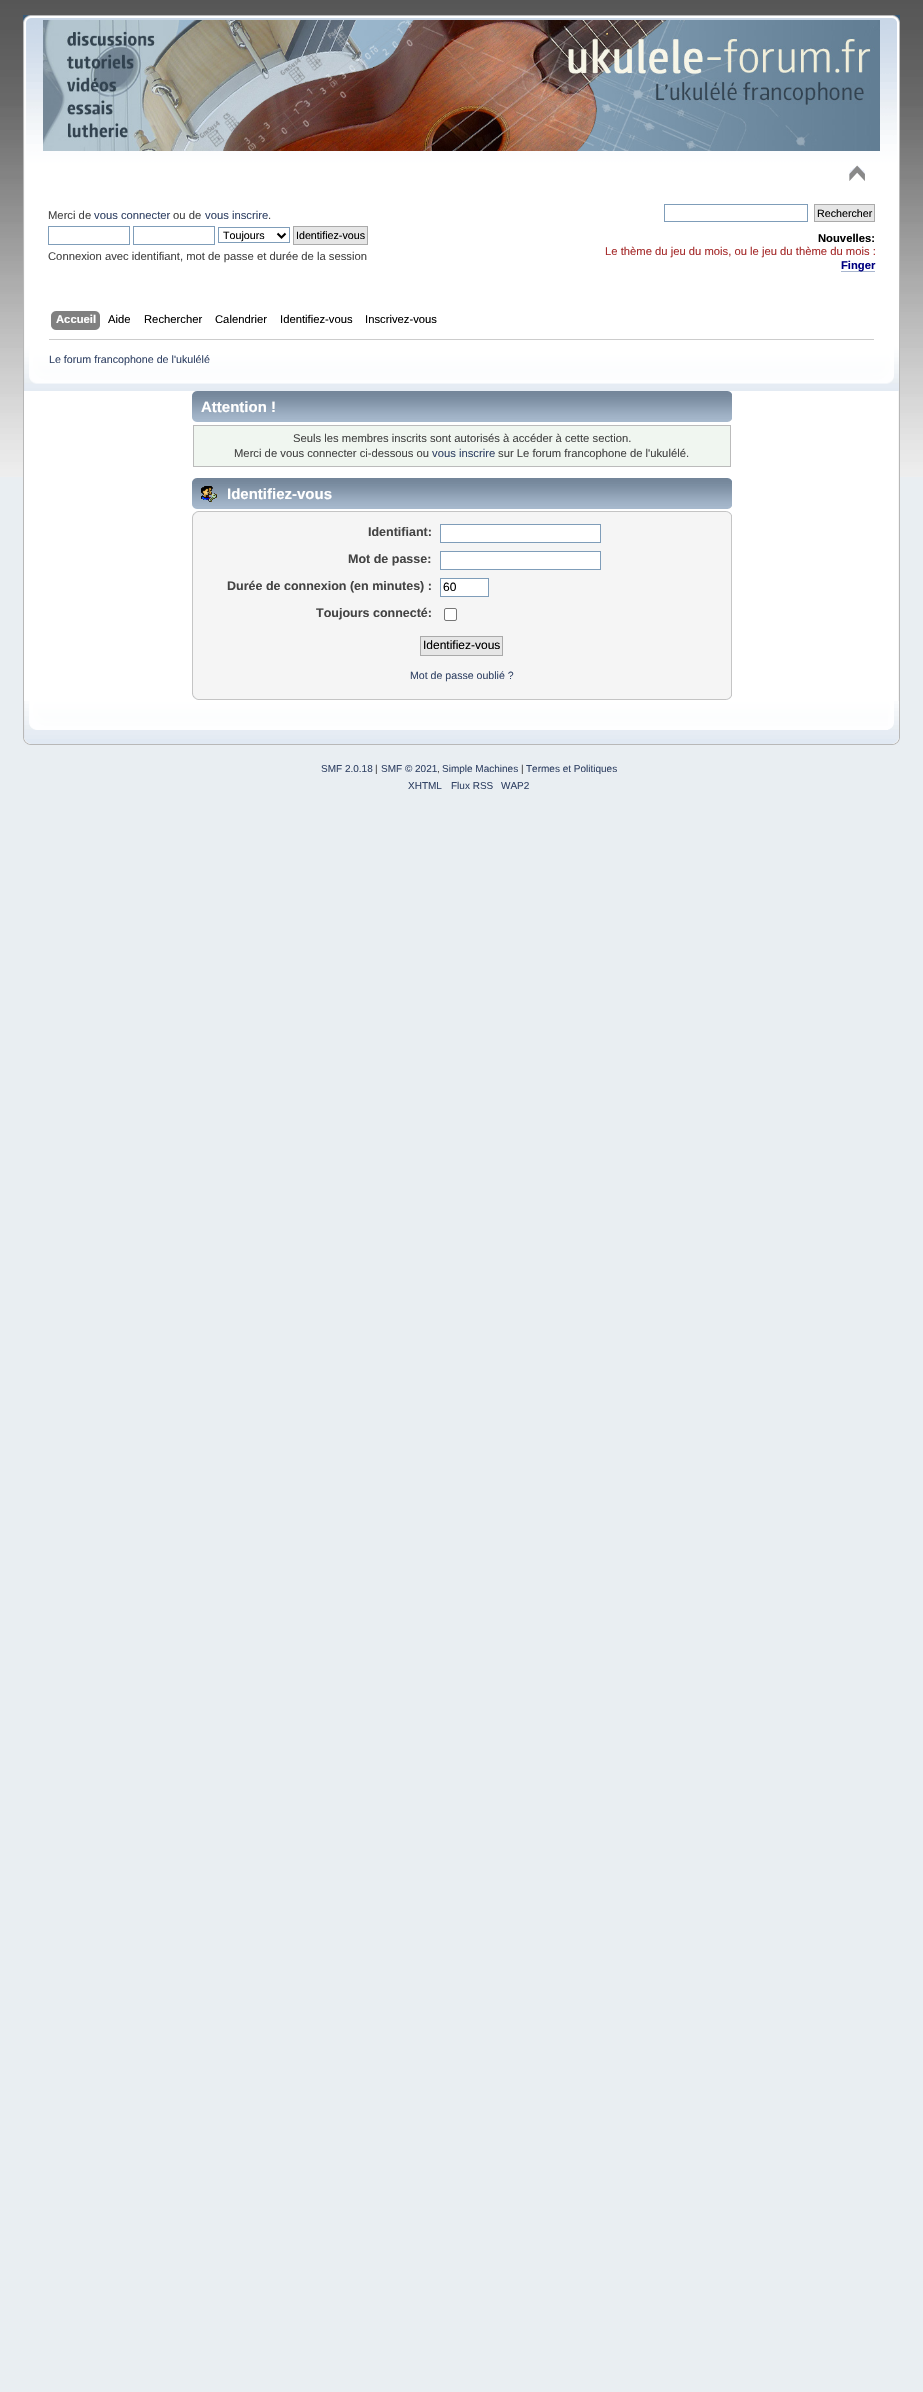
void draw(SkCanvas* canvas) {
    SkPaint paint;
    paint.setAntiAlias(true);
    auto face = [&](const char* family, int weight, float size, bool italic = false) {
        SkFontStyle style(weight, SkFontStyle::kNormal_Width,
            italic ? SkFontStyle::kItalic_Slant : SkFontStyle::kUpright_Slant);
        SkFont result(fontMgr->matchFamilyStyle(family, style), size);
        result.setSubpixel(true);
        return result;
    };
    auto write = [&](const char* s, float x, float y, const SkFont& font, SkColor color) {
        SkPaint ink(SkColor4f::FromColor(color));
        ink.setAntiAlias(true);
        canvas->drawString(s, x, y, font, ink);
    };
    auto block = [&](float x, float y, float w, float h, SkColor color) {
        SkPaint ink(SkColor4f::FromColor(color));
        ink.setAntiAlias(true);
        canvas->drawRect(SkRect::MakeXYWH(x, y, w, h), ink);
    };
    auto paste = [&](const char* path, float x, float y, float w, float h) {
        auto image = SkImages::DeferredFromEncodedData(SkData::MakeFromFileName(path));
        canvas->drawImageRect(image, SkRect::MakeXYWH(x, y, w, h), SkSamplingOptions());
    };
    canvas->clear(SkColorSetRGB(233, 238, 242));
    paste("pic1.png", 0, 0, 923, 477);
    paste("pic2.png", 23, 15, 379, 376);
    paste("pic3.png", 402, 15, 498, 376);
    paste("pic4.png", 43, 20, 837, 131);
    paste("pic5.png", 849, 165, 16, 16);
    auto kFont1 = face("Liberation Sans", 400, 11.25f);
    write("Merci de", 48, 219, kFont1, SkColorSetRGB(68, 68, 68));
    write("vous connecter", 94, 219, kFont1, SkColorSetRGB(51, 68, 102));
    write("ou de", 173, 219, kFont1, SkColorSetRGB(68, 68, 68));
    write("vous inscrire", 205, 219, kFont1, SkColorSetRGB(51, 68, 102));
    write(".", 268, 219, kFont1, SkColorSetRGB(68, 68, 68));
    paint.setStyle(SkPaint::kStroke_Style);
    paint.setStrokeWidth(1);
    paint.setColor(SkColorSetRGB(127, 157, 185));
    canvas->drawRect(SkRect::MakeXYWH(48.5f, 226.5f, 81, 18), paint);
    canvas->drawRect(SkRect::MakeXYWH(133.5f, 226.5f, 81, 18), paint);
    canvas->drawRect(SkRect::MakeXYWH(218.5f, 227.5f, 71, 15), paint);
    paint.setStrokeWidth(2);
    paint.setColor(SK_ColorBLACK);
    canvas->drawPath(SkPathBuilder().moveTo(277.5f, 233.5f).lineTo(281.5f, 237.5f).lineTo(285.5f, 233.5f).detach(), paint);
    auto kFont2 = face("Liberation Sans", 400, 10.7f);
    write("Toujours", 223, 239, kFont2, SK_ColorBLACK);
    paint.setStyle(SkPaint::kFill_Style);
    paint.setColor(SkColorSetRGB(230, 230, 230));
    canvas->drawRect(SkRect::MakeXYWH(293.5f, 226.5f, 74, 18), paint);
    paint.setStyle(SkPaint::kStroke_Style);
    paint.setStrokeWidth(1);
    paint.setColor(SkColorSetRGB(170, 170, 170));
    canvas->drawRect(SkRect::MakeXYWH(293.5f, 226.5f, 74, 18), paint);
    write("Identifiez-vous", 296, 239, kFont2, SK_ColorBLACK);
    write("Connexion avec identifiant, mot de passe et durée de la session", 48, 260, kFont1, SkColorSetRGB(68, 68, 68));
    paint.setColor(SkColorSetRGB(127, 157, 185));
    canvas->drawRect(SkRect::MakeXYWH(664.5f, 204.5f, 143, 17), paint);
    paint.setStyle(SkPaint::kFill_Style);
    paint.setColor(SkColorSetRGB(230, 230, 230));
    canvas->drawRect(SkRect::MakeXYWH(814.5f, 204.5f, 60, 17), paint);
    paint.setStyle(SkPaint::kStroke_Style);
    paint.setColor(SkColorSetRGB(170, 170, 170));
    canvas->drawRect(SkRect::MakeXYWH(814.5f, 204.5f, 60, 17), paint);
    write("Rechercher", 817, 217, kFont2, SK_ColorBLACK);
    auto kFont3 = face("Liberation Sans", 700, 11.25f);
    write("Nouvelles:", 818, 242, kFont3, SK_ColorBLACK);
    write("Le thème du jeu du mois, ou le jeu du thème du mois :", 605, 255, kFont1, SkColorSetRGB(165, 42, 42));
    block(841, 271, 34, 1, SkColorSetRGB(168, 182, 207));
    write("Finger", 841, 269, kFont3, SkColorSetRGB(0, 0, 128));
    paste("pic6.png", 56, 311, 44, 19);
    paste("pic7.png", 51, 311, 5, 19);
    write("Accueil", 56, 323, kFont3, SK_ColorWHITE);
    write("Aide", 108, 323, kFont1, SK_ColorBLACK);
    write("Rechercher", 144, 323, kFont1, SK_ColorBLACK);
    write("Calendrier", 215, 323, kFont1, SK_ColorBLACK);
    write("Identifiez-vous", 280, 323, kFont1, SK_ColorBLACK);
    write("Inscrivez-vous", 365, 323, kFont1, SK_ColorBLACK);
    block(49, 339, 825, 1, SkColorSetRGB(204, 204, 204));
    write("Le forum francophone de l'ukulélé", 49, 363, kFont2, SkColorSetRGB(51, 68, 102));
    block(24, 391, 874, 310, SK_ColorWHITE);
    block(23, 391, 1, 310, SkColorSetRGB(183, 183, 183));
    paste("pic8.png", 898, 391, 2, 310);
    paste("pic9.png", 192, 391, 535, 31);
    paste("pic10.png", 727, 391, 5, 31);
    auto kFont4 = face("Liberation Sans", 700, 15);
    write("Attention !", 201, 412, kFont4, SK_ColorWHITE);
    paint.setStyle(SkPaint::kFill_Style);
    paint.setColor(SkColorSetRGB(240, 246, 240));
    canvas->drawRect(SkRect::MakeXYWH(193.5f, 425.5f, 537, 41), paint);
    paint.setStyle(SkPaint::kStroke_Style);
    paint.setColor(SkColorSetRGB(187, 187, 187));
    canvas->drawRect(SkRect::MakeXYWH(193.5f, 425.5f, 537, 41), paint);
    write("Seuls les membres inscrits sont autorisés à accéder à cette section.", 293, 442, kFont1, SkColorSetRGB(68, 68, 68));
    write("Merci de vous connecter ci-dessous ou", 234, 457, kFont1, SkColorSetRGB(68, 68, 68));
    write("vous inscrire", 432, 457, kFont1, SkColorSetRGB(51, 68, 102));
    write("sur Le forum francophone de l'ukulélé.", 498, 457, kFont1, SkColorSetRGB(68, 68, 68));
    paste("pic9.png", 192, 478, 535, 31);
    paste("pic10.png", 727, 478, 5, 31);
    paste("pic11.png", 201, 486, 16, 16);
    write("Identifiez-vous", 227, 499, kFont4, SK_ColorWHITE);
    paste("pic12.png", 192, 511, 534, 11);
    paste("pic13.png", 726, 511, 6, 11);
    block(193, 522, 538, 167, SkColorSetRGB(245, 245, 245));
    block(731, 522, 1, 167, SkColorSetRGB(197, 197, 197));
    block(192, 522, 1, 167, SkColorSetRGB(197, 197, 197));
    auto kFont5 = face("Liberation Sans", 700, 12.5f);
    write("Identifiant:", 368, 536, kFont5, SkColorSetRGB(68, 68, 68));
    paint.setStyle(SkPaint::kFill_Style);
    paint.setColor(SK_ColorWHITE);
    canvas->drawRect(SkRect::MakeXYWH(440.5f, 524.5f, 160, 18), paint);
    paint.setStyle(SkPaint::kStroke_Style);
    paint.setColor(SkColorSetRGB(127, 157, 185));
    canvas->drawRect(SkRect::MakeXYWH(440.5f, 524.5f, 160, 18), paint);
    write("Mot de passe:", 348, 563, kFont5, SkColorSetRGB(68, 68, 68));
    paint.setStyle(SkPaint::kFill_Style);
    paint.setColor(SK_ColorWHITE);
    canvas->drawRect(SkRect::MakeXYWH(440.5f, 551.5f, 160, 18), paint);
    paint.setStyle(SkPaint::kStroke_Style);
    paint.setColor(SkColorSetRGB(127, 157, 185));
    canvas->drawRect(SkRect::MakeXYWH(440.5f, 551.5f, 160, 18), paint);
    write("Durée de connexion (en minutes) :", 227, 590, kFont5, SkColorSetRGB(68, 68, 68));
    paint.setStyle(SkPaint::kFill_Style);
    paint.setColor(SK_ColorWHITE);
    canvas->drawRect(SkRect::MakeXYWH(440.5f, 578.5f, 48, 18), paint);
    paint.setStyle(SkPaint::kStroke_Style);
    paint.setColor(SkColorSetRGB(127, 157, 185));
    canvas->drawRect(SkRect::MakeXYWH(440.5f, 578.5f, 48, 18), paint);
    auto kFont6 = face("Liberation Sans", 400, 12);
    write("60", 443, 591, kFont6, SK_ColorBLACK);
    write("Toujours connecté:", 316, 617, kFont5, SkColorSetRGB(68, 68, 68));
    paint.setStyle(SkPaint::kFill_Style);
    paint.setColor(SK_ColorWHITE);
    canvas->drawRoundRect(SkRect::MakeXYWH(444.5f, 608.5f, 12, 12), 1.5f, 1.5f, paint);
    paint.setStyle(SkPaint::kStroke_Style);
    paint.setColor(SkColorSetRGB(118, 118, 118));
    canvas->drawRoundRect(SkRect::MakeXYWH(444.5f, 608.5f, 12, 12), 1.5f, 1.5f, paint);
    paint.setStyle(SkPaint::kFill_Style);
    paint.setColor(SkColorSetRGB(230, 230, 230));
    canvas->drawRect(SkRect::MakeXYWH(420.5f, 636.5f, 82, 19), paint);
    paint.setStyle(SkPaint::kStroke_Style);
    paint.setColor(SkColorSetRGB(170, 170, 170));
    canvas->drawRect(SkRect::MakeXYWH(420.5f, 636.5f, 82, 19), paint);
    write("Identifiez-vous", 423, 649, kFont6, SK_ColorBLACK);
    auto kFont7 = face("Liberation Sans", 400, 10.6f);
    write("Mot de passe oublié ?", 410, 679, kFont7, SkColorSetRGB(51, 68, 102));
    paste("pic14.png", 192, 689, 534, 11);
    paste("pic15.png", 726, 689, 6, 11);
    paste("pic16.png", 23, 701, 865, 44);
    paste("pic17.png", 888, 701, 12, 44);
    auto kFont8 = face("Liberation Sans", 400, 10);
    write("SMF 2.0.18", 321, 772, kFont8, SkColorSetRGB(51, 68, 102));
    write("|", 375, 772, kFont8, SkColorSetRGB(68, 68, 68));
    write("SMF © 2021", 381, 772, kFont8, SkColorSetRGB(51, 68, 102));
    write(",", 437, 772, kFont8, SkColorSetRGB(68, 68, 68));
    write("Simple Machines", 442, 772, kFont8, SkColorSetRGB(51, 68, 102));
    write("|", 521, 772, kFont8, SkColorSetRGB(68, 68, 68));
    write("Termes et Politiques", 526, 772, kFont8, SkColorSetRGB(51, 68, 102));
    write("XHTML", 408, 789, kFont8, SkColorSetRGB(51, 68, 102));
    write("Flux RSS", 451, 789, kFont8, SkColorSetRGB(51, 68, 102));
    write("WAP2", 501, 789, kFont8, SkColorSetRGB(51, 68, 102));
}
